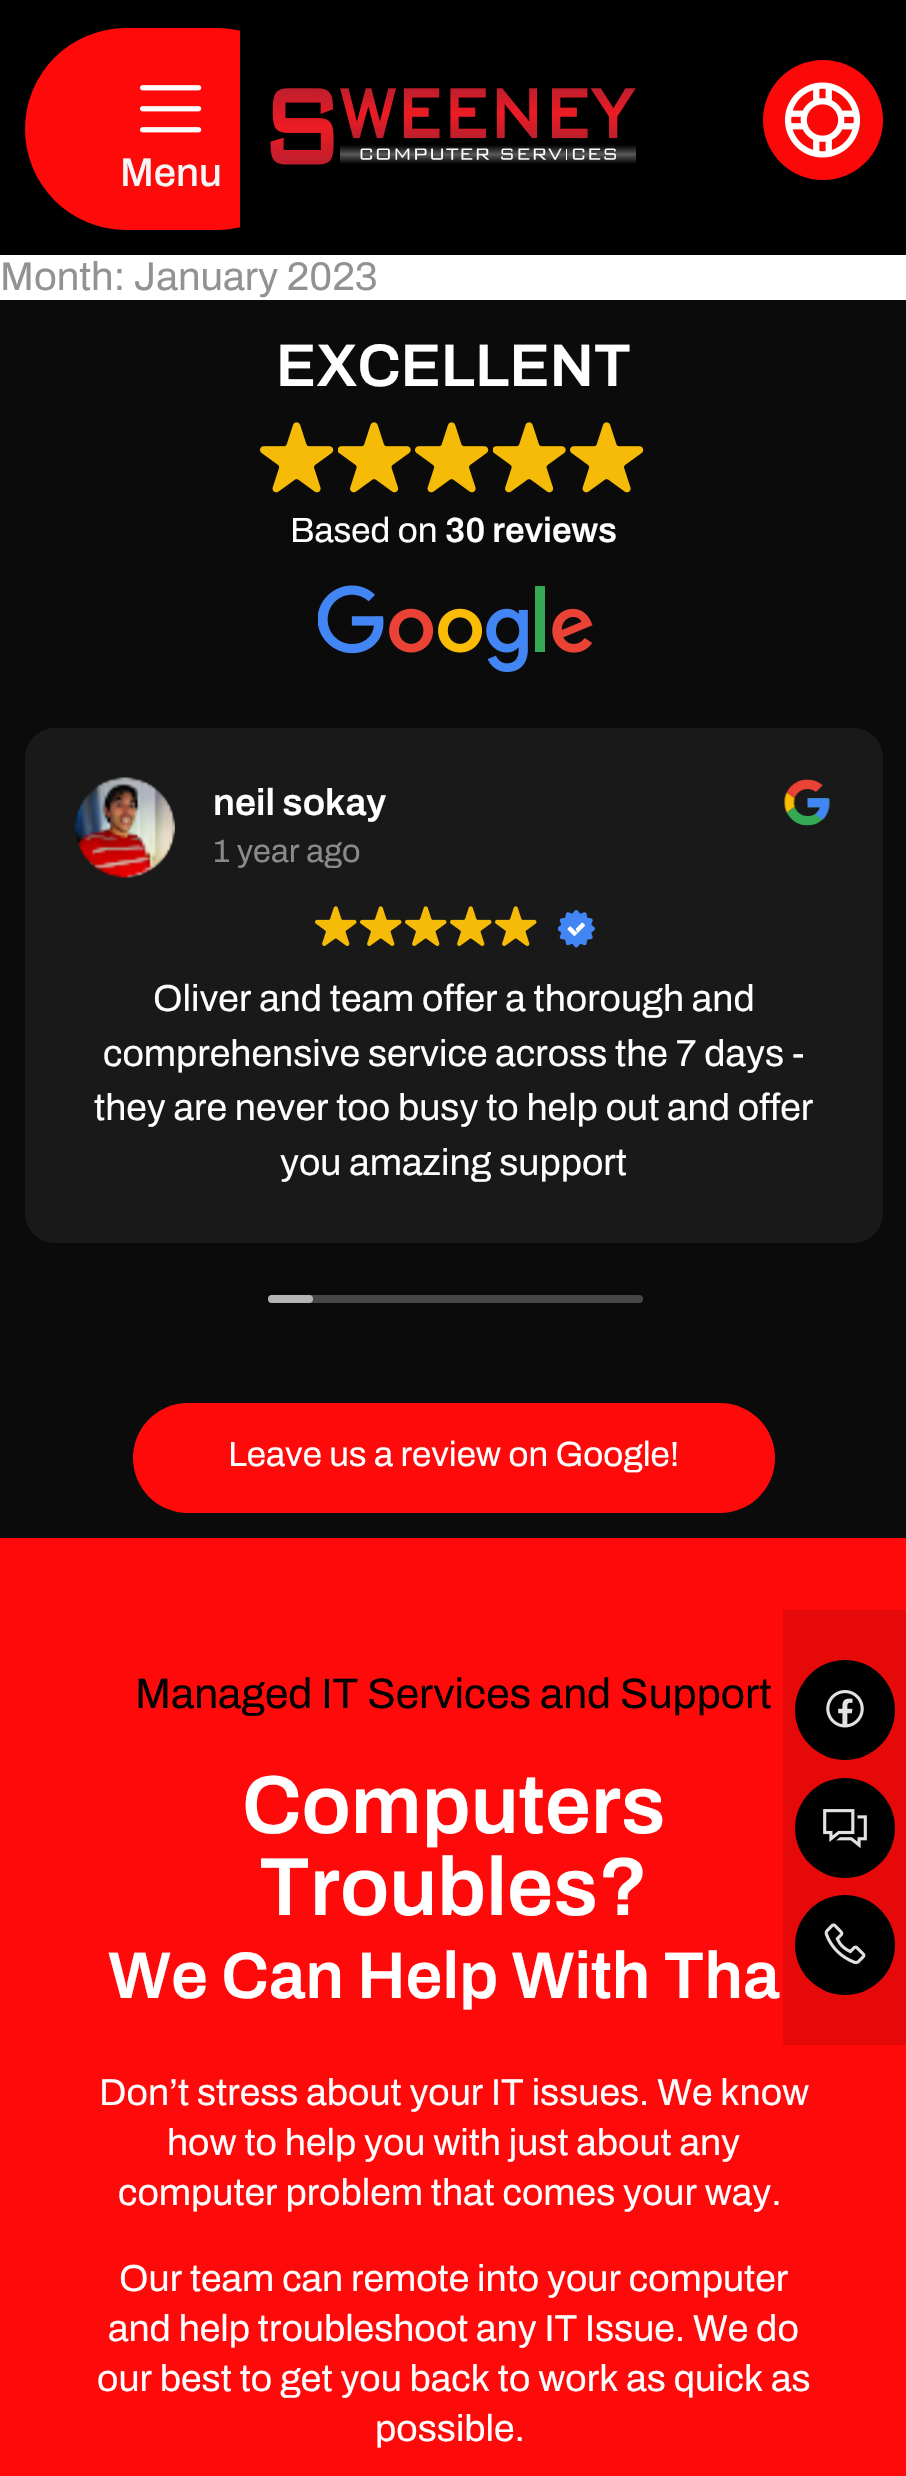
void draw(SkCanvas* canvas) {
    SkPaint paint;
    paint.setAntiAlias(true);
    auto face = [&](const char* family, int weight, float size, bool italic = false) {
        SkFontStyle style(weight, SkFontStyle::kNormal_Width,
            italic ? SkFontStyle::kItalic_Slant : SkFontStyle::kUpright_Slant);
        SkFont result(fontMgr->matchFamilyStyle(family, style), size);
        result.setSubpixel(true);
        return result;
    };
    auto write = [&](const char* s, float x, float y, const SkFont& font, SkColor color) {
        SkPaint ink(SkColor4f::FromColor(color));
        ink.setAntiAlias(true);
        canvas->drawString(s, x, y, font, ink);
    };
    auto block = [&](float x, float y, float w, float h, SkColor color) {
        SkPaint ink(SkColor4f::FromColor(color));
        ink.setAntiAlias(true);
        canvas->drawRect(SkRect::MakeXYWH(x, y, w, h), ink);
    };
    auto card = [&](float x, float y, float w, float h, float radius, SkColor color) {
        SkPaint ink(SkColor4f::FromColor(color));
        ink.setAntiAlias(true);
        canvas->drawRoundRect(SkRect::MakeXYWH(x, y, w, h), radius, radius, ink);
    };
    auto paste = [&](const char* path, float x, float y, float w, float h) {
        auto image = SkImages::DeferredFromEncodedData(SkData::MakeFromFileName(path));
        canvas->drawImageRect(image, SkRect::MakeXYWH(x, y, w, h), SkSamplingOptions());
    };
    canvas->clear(SK_ColorWHITE);
    block(0, 0, 906, 255, SK_ColorBLACK);
    canvas->save();
    canvas->clipRect(SkRect::MakeXYWH(25, 28, 215, 202));
    card(25, 28, 293, 202, 101, SkColorSetRGB(255, 10, 10));
    canvas->restore();
    paste("pic1.png", 270, 88, 366, 77);
    paint.setColor(SkColorSetRGB(251, 9, 9));
    canvas->drawCircle(823, 120, 60, paint);
    paste("pic2.png", 785, 82, 75, 76);
    paste("pic3.png", 140, 85, 62, 48);
    auto kFont1 = face("Archivo", 500, 40);
    write("Menu", 120, 186, kFont1, SkColorSetRGB(246, 246, 246));
    auto kFont2 = face("Archivo", 400, 40);
    write("Month: January 2023", 0, 290, kFont2, SkColorSetRGB(146, 146, 146));
    block(0, 300, 906, 1238, SkColorSetRGB(11, 11, 11));
    auto kFont3 = face("Archivo", 600, 60);
    write("EXCELLENT", 276, 386, kFont3, SK_ColorWHITE);
    paste("pic4.png", 260, 422, 74, 71);
    paste("pic5.png", 338, 422, 73, 71);
    paste("pic4.png", 415, 422, 74, 71);
    paste("pic5.png", 493, 422, 73, 71);
    paste("pic4.png", 570, 422, 74, 71);
    auto kFont4 = face("Archivo", 400, 35);
    write("Based on", 290, 542, kFont4, SK_ColorWHITE);
    auto kFont5 = face("Archivo", 600, 35);
    write("30 reviews", 445, 542, kFont5, SK_ColorWHITE);
    paste("pic6.png", 318, 585, 275, 87);
    card(25, 728, 858, 515, 30, SkColorSetRGB(25, 25, 25));
    paste("pic7.png", 75, 777, 100, 101);
    auto kFont6 = face("Archivo", 600, 37.5f);
    write("neil sokay", 213, 815, kFont6, SK_ColorWHITE);
    auto kFont7 = face("Archivo", 400, 32.5f);
    write("1 year ago", 213, 862, kFont7, SkColorSetRGB(138, 138, 138));
    paste("pic8.png", 784, 779, 46, 47);
    paste("pic9.png", 315, 906, 42, 40);
    paste("pic9.png", 360, 906, 42, 40);
    paste("pic9.png", 405, 906, 42, 40);
    paste("pic9.png", 450, 906, 42, 40);
    paste("pic9.png", 495, 906, 42, 40);
    paste("pic10.png", 558, 910, 37, 38);
    auto kFont8 = face("Archivo", 400, 37.5f);
    write("Oliver and team offer a thorough and", 153, 1011, kFont8, SK_ColorWHITE);
    write("comprehensive service across the 7 days -", 103, 1066, kFont8, SK_ColorWHITE);
    write("they are never too busy to help out and offer", 94, 1120, kFont8, SK_ColorWHITE);
    write("you amazing support", 280, 1175, kFont8, SK_ColorWHITE);
    card(268, 1295, 375, 8, 4, SkColorSetRGB(71, 71, 71));
    card(268, 1295, 45, 8, 4, SkColorSetRGB(181, 181, 181));
    card(133, 1403, 642, 110, 55, SkColorSetRGB(255, 10, 10));
    write("Leave us a review on Google!", 228, 1466, kFont4, SK_ColorWHITE);
    block(0, 1538, 906, 938, SkColorSetRGB(255, 10, 10));
    auto kFont9 = face("Archivo", 400, 42.5f);
    write("Managed IT Services and Support", 135, 1708, kFont9, SK_ColorBLACK);
    auto kFont10 = face("Archivo", 600, 82.5f);
    write("Computers", 242, 1833, kFont10, SK_ColorWHITE);
    write("Troubles?", 259, 1915, kFont10, SK_ColorWHITE);
    auto kFont11 = face("Archivo", 600, 66);
    write("We Can Help With Tha", 108, 1998, kFont11, SK_ColorWHITE);
    write("Don’t stress about your IT issues. We know", 99, 2105, kFont8, SK_ColorWHITE);
    write("how to help you with just about any", 167, 2155, kFont8, SK_ColorWHITE);
    write("computer problem that comes your way.", 118, 2205, kFont8, SK_ColorWHITE);
    write("Our team can remote into your computer", 119, 2291, kFont8, SK_ColorWHITE);
    write("and help troubleshoot any IT Issue. We do", 108, 2341, kFont8, SK_ColorWHITE);
    write("our best to get you back to work as quick as", 97, 2391, kFont8, SK_ColorWHITE);
    write("possible.", 375, 2441, kFont8, SK_ColorWHITE);
    block(783, 1610, 123, 435, SkColorSetRGB(230, 9, 9));
    paint.setColor(SK_ColorBLACK);
    canvas->drawCircle(845, 1710, 50, paint);
    paste("pic11.png", 826, 1690, 38, 38);
    canvas->drawCircle(845, 1828, 50, paint);
    paste("pic12.png", 823, 1809, 44, 40);
    canvas->drawCircle(845, 1945, 50, paint);
    paste("pic13.png", 824, 1923, 42, 42);
}
